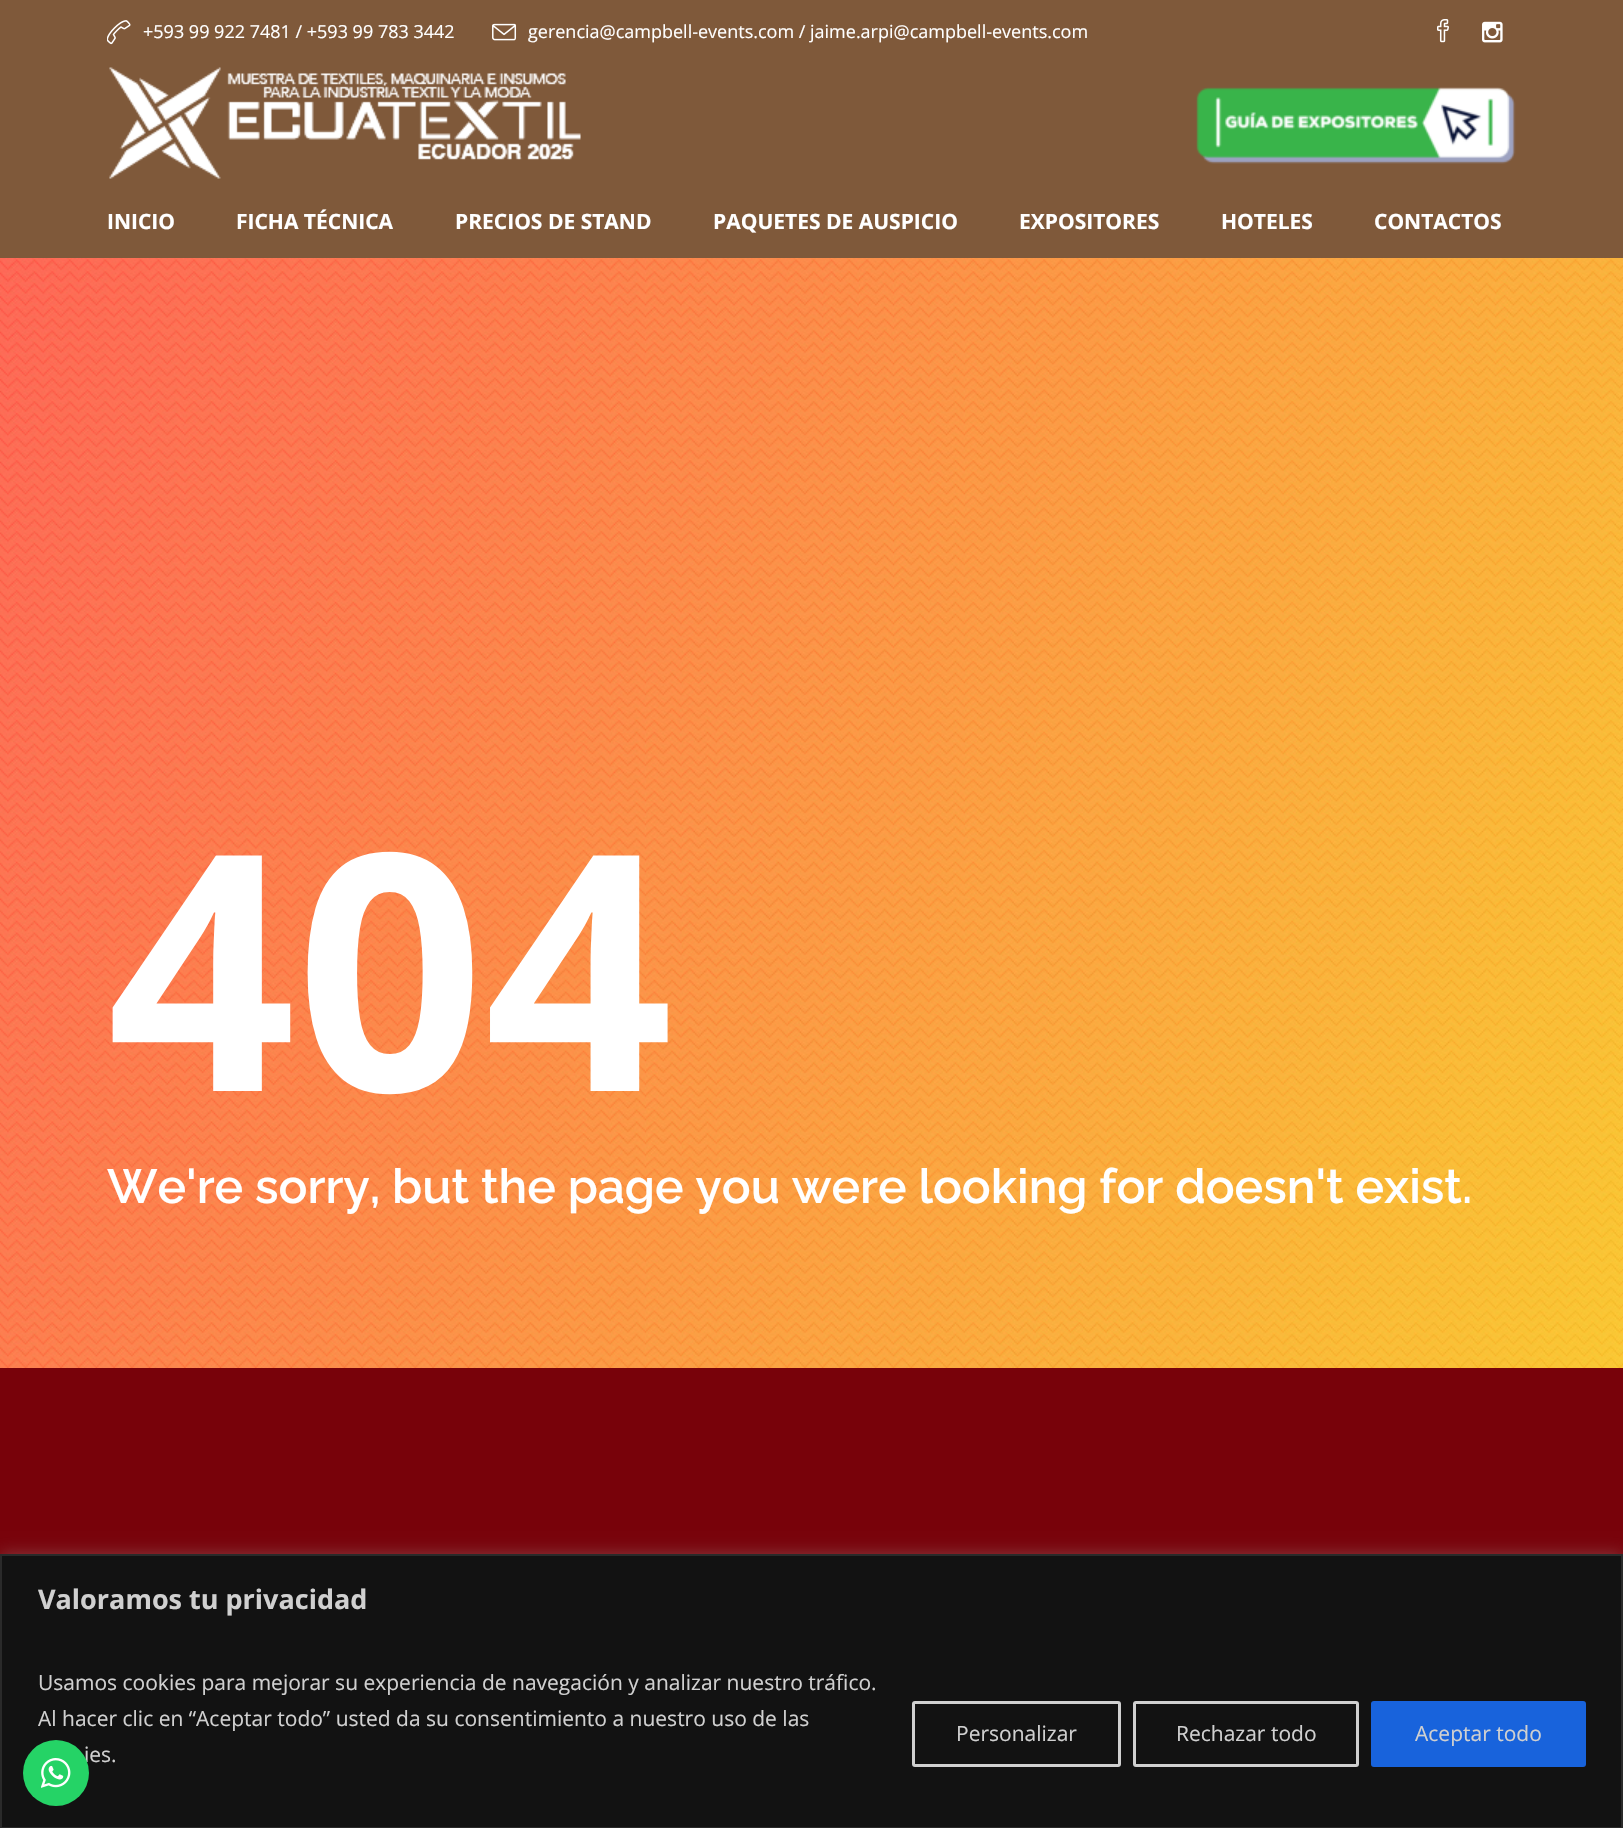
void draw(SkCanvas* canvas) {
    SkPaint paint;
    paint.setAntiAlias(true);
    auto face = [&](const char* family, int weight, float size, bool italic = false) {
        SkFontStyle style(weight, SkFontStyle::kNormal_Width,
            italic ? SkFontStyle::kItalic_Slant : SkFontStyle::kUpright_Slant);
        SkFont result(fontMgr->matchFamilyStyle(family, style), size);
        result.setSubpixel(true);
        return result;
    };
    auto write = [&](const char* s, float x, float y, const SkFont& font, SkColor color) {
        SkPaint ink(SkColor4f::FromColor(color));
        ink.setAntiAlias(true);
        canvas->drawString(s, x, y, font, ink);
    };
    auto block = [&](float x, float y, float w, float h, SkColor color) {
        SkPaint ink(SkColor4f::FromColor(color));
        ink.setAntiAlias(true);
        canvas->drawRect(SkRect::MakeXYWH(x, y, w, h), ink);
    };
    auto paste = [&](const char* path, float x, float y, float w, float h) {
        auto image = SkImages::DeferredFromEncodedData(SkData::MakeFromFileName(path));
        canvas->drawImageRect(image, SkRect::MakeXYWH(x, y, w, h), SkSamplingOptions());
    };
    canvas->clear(SkColorSetRGB(120, 2, 10));
    block(0, 0, 1623, 258, SkColorSetRGB(127, 89, 58));
    paste("pic1.png", 107, 20, 24, 25);
    auto kFont1 = face("Open Sans", 400, 18);
    write("+593 99 922 7481 / +593 99 783 3442", 143, 38, kFont1, SK_ColorWHITE);
    paste("pic2.png", 492, 23, 25, 18);
    write("gerencia@campbell-events.com / jaime.arpi@campbell-events.com", 528, 38, kFont1, SK_ColorWHITE);
    paste("pic3.png", 1437, 19, 12, 24);
    paste("pic4.png", 1482, 21, 21, 22);
    paste("pic5.png", 109, 67, 472, 112);
    paste("pic6.png", 1196, 87, 320, 77);
    auto kFont2 = face("Open Sans", 700, 21);
    write("INICIO", 107, 229, kFont2, SK_ColorWHITE);
    write("FICHA TÉCNICA", 236, 229, kFont2, SK_ColorWHITE);
    write("PRECIOS DE STAND", 455, 229, kFont2, SK_ColorWHITE);
    write("PAQUETES DE AUSPICIO", 713, 229, kFont2, SK_ColorWHITE);
    write("EXPOSITORES", 1019, 229, kFont2, SK_ColorWHITE);
    write("HOTELES", 1221, 229, kFont2, SK_ColorWHITE);
    write("CONTACTOS", 1374, 229, kFont2, SK_ColorWHITE);
    paste("pic7.png", 0, 258, 1623, 1110);
    auto kFont3 = face("Open Sans", 700, 330);
    write("404", 107, 1091, kFont3, SK_ColorWHITE);
    auto kFont4 = face("Raleway", 600, 48);
    write("We're sorry, but the page you were looking for doesn't exist.", 107, 1203, kFont4, SK_ColorWHITE);
    paint.setColor(SkColorSetARGB(77, 172, 171, 171));
    paint.setMaskFilter(SkMaskFilter::MakeBlur(kNormal_SkBlurStyle, 7.5f));
    canvas->drawRect(SkRect::MakeXYWH(0, 1553, 1623, 274), paint);
    paint.setMaskFilter(nullptr);
    paint.setColor(SkColorSetRGB(18, 18, 18));
    canvas->drawRect(SkRect::MakeXYWH(1, 1555, 1621, 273), paint);
    paint.setStyle(SkPaint::kStroke_Style);
    paint.setStrokeWidth(2);
    paint.setColor(SkColorSetRGB(42, 42, 42));
    canvas->drawRect(SkRect::MakeXYWH(1, 1555, 1621, 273), paint);
    auto kFont5 = face("Open Sans", 700, 27);
    write("Valoramos tu privacidad", 38, 1609, kFont5, SkColorSetRGB(208, 208, 208));
    auto kFont6 = face("Open Sans", 400, 21);
    write("Usamos cookies para mejorar su experiencia de navegación y analizar nuestro tráfico.", 38, 1690, kFont6, SkColorSetRGB(208, 208, 208));
    write("Al hacer clic en “Aceptar todo” usted da su consentimiento a nuestro uso de las", 38, 1726, kFont6, SkColorSetRGB(208, 208, 208));
    write("ies.", 84, 1762, kFont6, SkColorSetRGB(208, 208, 208));
    paint.setStrokeWidth(3);
    paint.setColor(SkColorSetRGB(208, 208, 208));
    canvas->drawRoundRect(SkRect::MakeXYWH(913.5f, 1702.5f, 206, 63), 1.5f, 1.5f, paint);
    write("Personalizar", 956, 1741, kFont6, SkColorSetRGB(208, 208, 208));
    canvas->drawRoundRect(SkRect::MakeXYWH(1134.5f, 1702.5f, 223, 63), 1.5f, 1.5f, paint);
    write("Rechazar todo", 1176, 1741, kFont6, SkColorSetRGB(208, 208, 208));
    paint.setStyle(SkPaint::kFill_Style);
    paint.setColor(SkColorSetRGB(24, 99, 220));
    canvas->drawRoundRect(SkRect::MakeXYWH(1372.5f, 1702.5f, 212, 63), 1.5f, 1.5f, paint);
    paint.setStyle(SkPaint::kStroke_Style);
    canvas->drawRoundRect(SkRect::MakeXYWH(1372.5f, 1702.5f, 212, 63), 1.5f, 1.5f, paint);
    write("Aceptar todo", 1415, 1741, kFont6, SkColorSetRGB(208, 208, 208));
    paint.setStyle(SkPaint::kFill_Style);
    paint.setColor(SkColorSetRGB(37, 211, 102));
    canvas->drawCircle(56, 1773, 33, paint);
    paste("pic8.png", 41, 1758, 30, 30);
}
